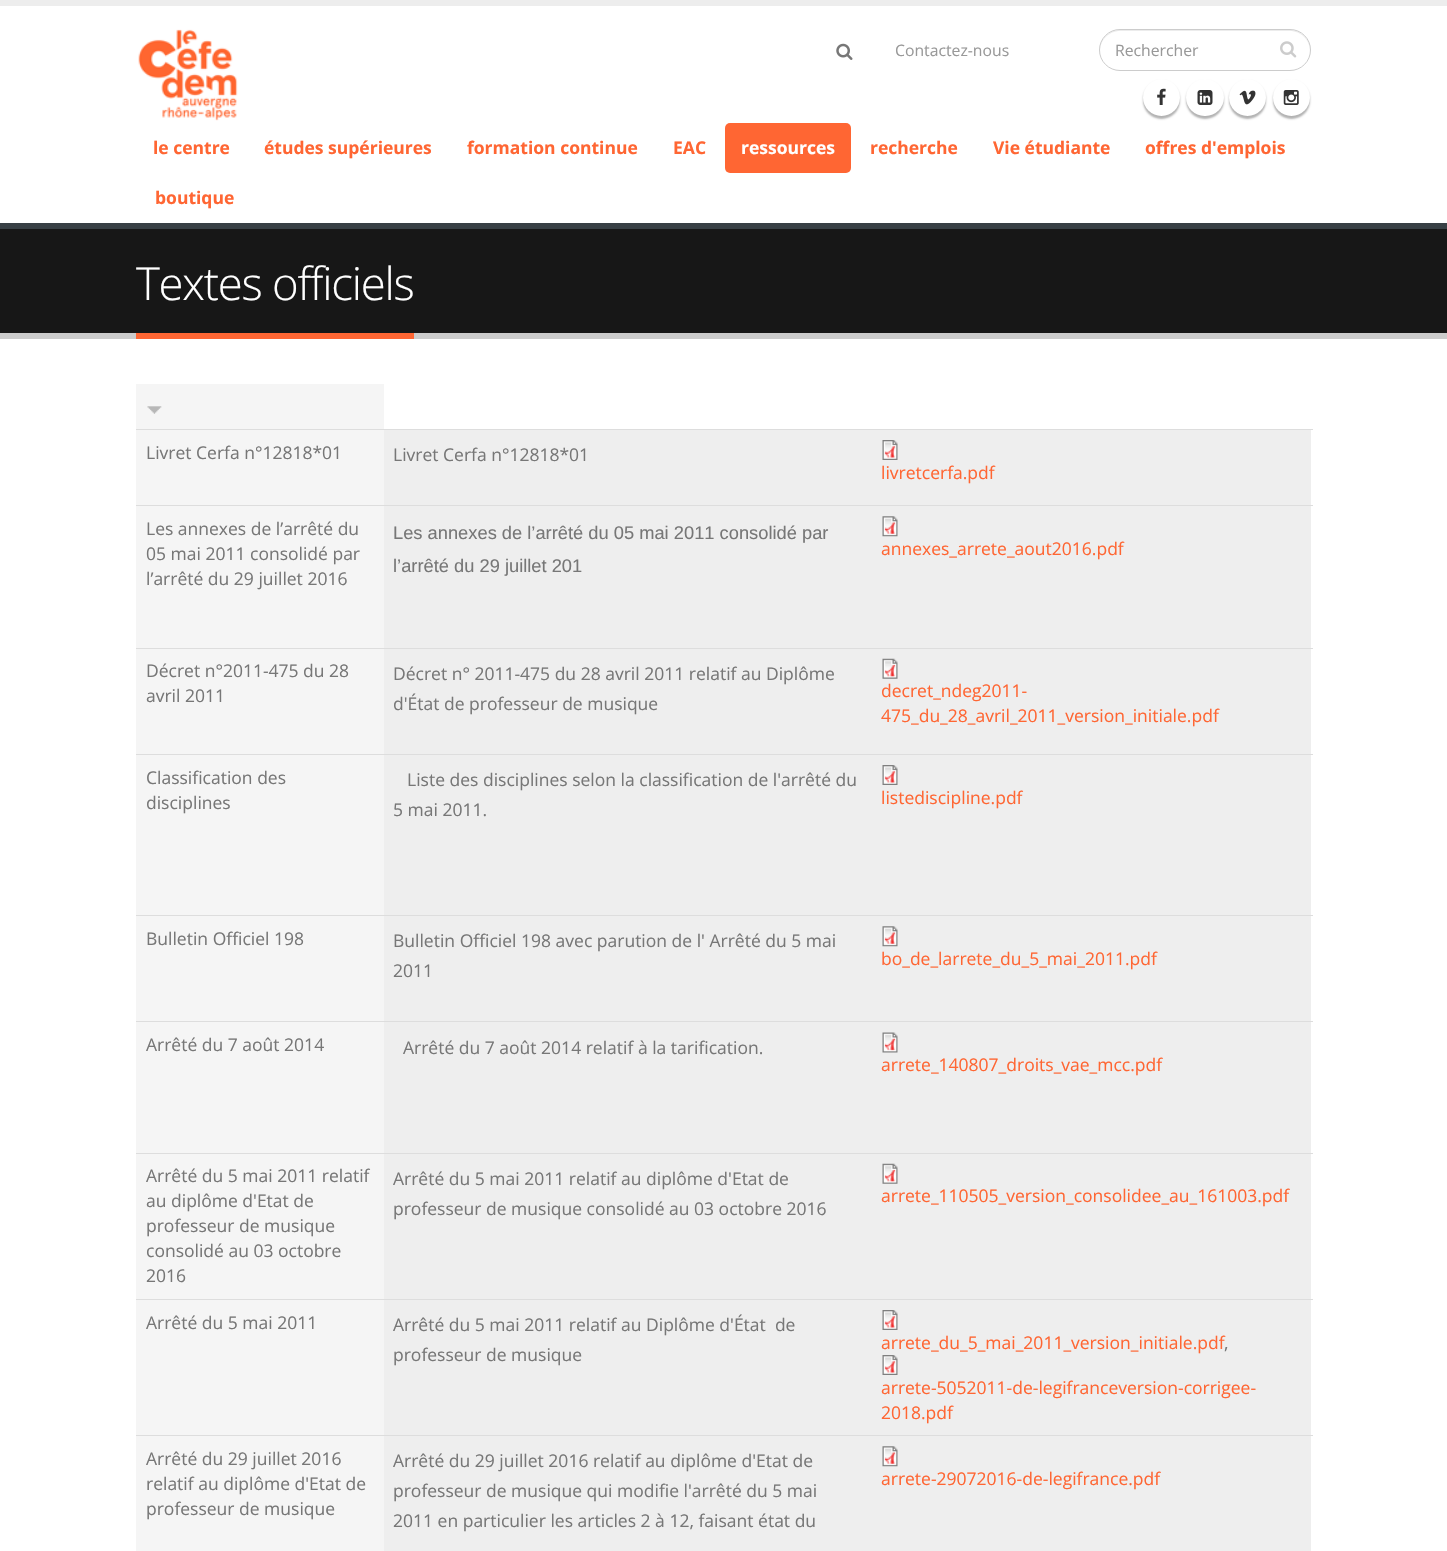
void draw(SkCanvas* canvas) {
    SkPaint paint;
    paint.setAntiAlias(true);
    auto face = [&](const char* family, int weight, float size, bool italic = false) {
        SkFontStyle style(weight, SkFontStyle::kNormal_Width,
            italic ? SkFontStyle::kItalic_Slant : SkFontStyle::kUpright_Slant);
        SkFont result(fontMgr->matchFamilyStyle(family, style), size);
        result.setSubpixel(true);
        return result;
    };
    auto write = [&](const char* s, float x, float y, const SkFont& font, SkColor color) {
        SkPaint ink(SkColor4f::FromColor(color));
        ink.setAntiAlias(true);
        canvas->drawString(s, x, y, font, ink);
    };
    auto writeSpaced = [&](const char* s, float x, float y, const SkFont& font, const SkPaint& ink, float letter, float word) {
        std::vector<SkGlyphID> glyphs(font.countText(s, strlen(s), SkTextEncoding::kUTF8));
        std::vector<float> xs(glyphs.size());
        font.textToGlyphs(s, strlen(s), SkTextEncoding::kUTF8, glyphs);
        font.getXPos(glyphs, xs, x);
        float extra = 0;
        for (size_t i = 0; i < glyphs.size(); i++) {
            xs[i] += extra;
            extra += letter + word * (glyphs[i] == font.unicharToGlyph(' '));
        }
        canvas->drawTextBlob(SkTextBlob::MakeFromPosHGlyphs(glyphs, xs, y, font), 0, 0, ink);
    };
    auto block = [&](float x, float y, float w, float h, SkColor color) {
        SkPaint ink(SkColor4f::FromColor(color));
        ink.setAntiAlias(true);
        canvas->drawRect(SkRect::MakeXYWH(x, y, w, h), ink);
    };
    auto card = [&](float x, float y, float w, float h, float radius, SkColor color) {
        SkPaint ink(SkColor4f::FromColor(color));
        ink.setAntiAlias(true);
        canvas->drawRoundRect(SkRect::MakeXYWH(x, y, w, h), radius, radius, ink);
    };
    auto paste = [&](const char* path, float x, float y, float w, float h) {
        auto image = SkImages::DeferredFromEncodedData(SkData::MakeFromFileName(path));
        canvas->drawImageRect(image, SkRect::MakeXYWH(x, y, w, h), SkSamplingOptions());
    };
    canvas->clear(SK_ColorWHITE);
    block(0, 0, 1447, 6, SkColorSetRGB(237, 237, 237));
    paste("pic1.png", 138, 29, 100, 92);
    paste("pic2.png", 836, 43, 17, 17);
    auto kFont1 = face("Open Sans", 400, 15.75f);
    write("Contactez-nous", 895, 56, kFont1, SkColorSetRGB(153, 153, 153));
    paint.setColor(SkColorSetRGB(236, 236, 236));
    canvas->drawPath(SkPathBuilder().moveTo(1120, 31).lineTo(1290, 31).cubicTo(1301, 31, 1310, 40, 1310, 51).lineTo(1310, 50).cubicTo(1310, 39, 1301, 30, 1290, 30).lineTo(1120, 30).cubicTo(1109, 30, 1100, 39, 1100, 50).lineTo(1100, 51).cubicTo(1100, 40, 1109, 31, 1120, 31).close().detach(), paint);
    paint.setStyle(SkPaint::kStroke_Style);
    paint.setStrokeWidth(1);
    paint.setColor(SkColorSetRGB(204, 204, 204));
    canvas->drawRoundRect(SkRect::MakeXYWH(1099.5f, 29.5f, 211, 41), 20.5f, 20.5f, paint);
    write("Rechercher", 1115, 56, kFont1, SkColorSetRGB(153, 153, 153));
    paste("pic3.png", 1280, 41, 17, 17);
    paint.setStyle(SkPaint::kFill_Style);
    paint.setColor(SkColorSetARGB(77, 0, 0, 0));
    paint.setMaskFilter(SkMaskFilter::MakeBlur(kNormal_SkBlurStyle, 1));
    canvas->drawRoundRect(SkRect::MakeXYWH(1143, 81, 37, 38), 18.5f, 18.5f, paint);
    paint.setMaskFilter(nullptr);
    paint.setColor(SK_ColorWHITE);
    canvas->drawCircle(1161.5f, 97.5f, 18.5f, paint);
    paste("pic4.png", 1157, 88, 9, 17);
    paint.setColor(SkColorSetARGB(77, 0, 0, 0));
    paint.setMaskFilter(SkMaskFilter::MakeBlur(kNormal_SkBlurStyle, 1));
    canvas->drawRoundRect(SkRect::MakeXYWH(1186, 81, 38, 38), 19, 19, paint);
    paint.setMaskFilter(nullptr);
    card(1186, 79, 38, 37, 18.5f, SK_ColorWHITE);
    paste("pic5.png", 1197, 90, 16, 15);
    paint.setMaskFilter(SkMaskFilter::MakeBlur(kNormal_SkBlurStyle, 1));
    canvas->drawRoundRect(SkRect::MakeXYWH(1229, 81, 37, 38), 18.5f, 18.5f, paint);
    paint.setMaskFilter(nullptr);
    paint.setColor(SK_ColorWHITE);
    canvas->drawCircle(1247.5f, 97.5f, 18.5f, paint);
    paste("pic6.png", 1239, 90, 17, 15);
    paint.setColor(SkColorSetARGB(77, 0, 0, 0));
    paint.setMaskFilter(SkMaskFilter::MakeBlur(kNormal_SkBlurStyle, 1));
    canvas->drawRoundRect(SkRect::MakeXYWH(1273, 81, 37, 38), 18.5f, 18.5f, paint);
    paint.setMaskFilter(nullptr);
    paint.setColor(SK_ColorWHITE);
    canvas->drawCircle(1291.5f, 97.5f, 18.5f, paint);
    paste("pic7.png", 1283, 90, 16, 15);
    auto kFont2 = face("Open Sans", 700, 17.5f);
    write("le centre", 153, 154, kFont2, SkColorSetRGB(255, 102, 51));
    write("études supérieures", 264, 154, kFont2, SkColorSetRGB(255, 102, 51));
    write("formation continue", 467, 154, kFont2, SkColorSetRGB(255, 102, 51));
    write("EAC", 673, 154, kFont2, SkColorSetRGB(255, 102, 51));
    card(725, 123, 126, 50, 5, SkColorSetRGB(255, 102, 51));
    write("ressources", 741, 154, kFont2, SK_ColorWHITE);
    write("recherche", 870, 154, kFont2, SkColorSetRGB(255, 102, 51));
    write("Vie étudiante", 993, 154, kFont2, SkColorSetRGB(255, 102, 51));
    write("offres d'emplois", 1145, 154, kFont2, SkColorSetRGB(255, 102, 51));
    write("boutique", 155, 204, kFont2, SkColorSetRGB(255, 102, 51));
    block(0, 229, 1447, 104, SkColorSetRGB(23, 23, 23));
    block(0, 223, 1447, 6, SkColorSetRGB(56, 64, 69));
    block(0, 333, 1447, 6, SkColorSetRGB(204, 204, 204));
    block(136, 333, 278, 6, SkColorSetRGB(255, 102, 51));
    auto kFont3 = face("Open Sans", 300, 45.5f);
    writeSpaced("Textes officiels", 136, 300, kFont3, paint, -1.25f, 0);
    block(136, 384, 248, 45, SkColorSetRGB(245, 245, 245));
    paste("pic8.png", 147, 406, 15, 8);
    block(384, 430, 927, 75, SkColorSetRGB(238, 238, 238));
    block(136, 430, 248, 75, SkColorSetRGB(245, 245, 245));
    auto kFont4 = face("Open Sans", 400, 17.5f);
    write("Livret Cerfa n°12818*01", 146, 459, kFont4, SkColorSetRGB(119, 119, 119));
    write("Livret Cerfa n°12818*01", 393, 461, kFont4, SkColorSetRGB(119, 119, 119));
    block(136, 429, 1177, 1, SkColorSetRGB(221, 221, 221));
    paste("pic9.png", 882, 440, 16, 20);
    write("livretcerfa.pdf", 881, 479, kFont4, SkColorSetRGB(255, 102, 51));
    block(384, 506, 927, 142, SkColorSetRGB(238, 238, 238));
    block(136, 506, 248, 142, SkColorSetRGB(245, 245, 245));
    write("Les annexes de l’arrêté du", 146, 535, kFont4, SkColorSetRGB(119, 119, 119));
    write("05 mai 2011 consolidé par", 146, 560, kFont4, SkColorSetRGB(119, 119, 119));
    write("l’arrêté du 29 juillet 2016", 146, 585, kFont4, SkColorSetRGB(119, 119, 119));
    auto kFont5 = face("Liberation Sans", 400, 18.3f);
    write("Les annexes de l’arrêté du 05 mai 2011 consolidé par", 393, 539, kFont5, SkColorSetRGB(119, 119, 119));
    write("l’arrêté du 29 juillet 201", 393, 572, kFont5, SkColorSetRGB(119, 119, 119));
    block(136, 505, 1177, 1, SkColorSetRGB(221, 221, 221));
    paste("pic10.png", 882, 516, 16, 21);
    write("annexes_arrete_aout2016.pdf", 881, 555, kFont4, SkColorSetRGB(255, 102, 51));
    block(384, 649, 927, 105, SkColorSetRGB(238, 238, 238));
    block(136, 649, 248, 105, SkColorSetRGB(245, 245, 245));
    write("Décret n°2011-475 du 28", 146, 677, kFont4, SkColorSetRGB(119, 119, 119));
    write("avril 2011", 146, 702, kFont4, SkColorSetRGB(119, 119, 119));
    write("Décret n° 2011-475 du 28 avril 2011 relatif au Diplôme", 393, 680, kFont4, SkColorSetRGB(119, 119, 119));
    write("d'État de professeur de musique", 393, 710, kFont4, SkColorSetRGB(119, 119, 119));
    block(136, 648, 1177, 1, SkColorSetRGB(221, 221, 221));
    paste("pic11.png", 882, 658, 16, 21);
    write("decret_ndeg2011-", 881, 697, kFont4, SkColorSetRGB(255, 102, 51));
    write("475_du_28_avril_2011_version_initiale.pdf", 881, 722, kFont4, SkColorSetRGB(255, 102, 51));
    block(384, 755, 927, 160, SkColorSetRGB(238, 238, 238));
    block(136, 755, 248, 160, SkColorSetRGB(245, 245, 245));
    write("Classification des", 146, 784, kFont4, SkColorSetRGB(119, 119, 119));
    write("disciplines", 146, 809, kFont4, SkColorSetRGB(119, 119, 119));
    write("Liste des disciplines selon la classification de l'arrêté du", 407, 786, kFont4, SkColorSetRGB(119, 119, 119));
    write("5 mai 2011.", 393, 816, kFont4, SkColorSetRGB(119, 119, 119));
    block(136, 754, 1177, 1, SkColorSetRGB(221, 221, 221));
    paste("pic9.png", 882, 765, 16, 20);
    write("listediscipline.pdf", 881, 804, kFont4, SkColorSetRGB(255, 102, 51));
    block(384, 916, 927, 105, SkColorSetRGB(238, 238, 238));
    block(136, 916, 248, 105, SkColorSetRGB(245, 245, 245));
    write("Bulletin Officiel 198", 146, 945, kFont4, SkColorSetRGB(119, 119, 119));
    write("Bulletin Officiel 198 avec parution de l' Arrêté du 5 mai", 393, 947, kFont4, SkColorSetRGB(119, 119, 119));
    write("2011", 393, 977, kFont4, SkColorSetRGB(119, 119, 119));
    block(136, 915, 1177, 1, SkColorSetRGB(221, 221, 221));
    paste("pic10.png", 882, 926, 16, 21);
    write("bo_de_larrete_du_5_mai_2011.pdf", 881, 965, kFont4, SkColorSetRGB(255, 102, 51));
    block(384, 1022, 927, 131, SkColorSetRGB(238, 238, 238));
    block(136, 1022, 248, 131, SkColorSetRGB(245, 245, 245));
    write("Arrêté du 7 août 2014", 146, 1051, kFont4, SkColorSetRGB(119, 119, 119));
    write("Arrêté du 7 août 2014 relatif à la tarification.", 403, 1054, kFont4, SkColorSetRGB(119, 119, 119));
    block(136, 1021, 1177, 1, SkColorSetRGB(221, 221, 221));
    paste("pic12.png", 882, 1032, 16, 21);
    write("arrete_140807_droits_vae_mcc.pdf", 881, 1071, kFont4, SkColorSetRGB(255, 102, 51));
    block(384, 1154, 927, 145, SkColorSetRGB(238, 238, 238));
    block(136, 1154, 248, 145, SkColorSetRGB(245, 245, 245));
    write("Arrêté du 5 mai 2011 relatif", 146, 1182, kFont4, SkColorSetRGB(119, 119, 119));
    write("au diplôme d'Etat de", 146, 1207, kFont4, SkColorSetRGB(119, 119, 119));
    write("professeur de musique", 146, 1232, kFont4, SkColorSetRGB(119, 119, 119));
    write("consolidé au 03 octobre", 146, 1257, kFont4, SkColorSetRGB(119, 119, 119));
    write("2016", 146, 1282, kFont4, SkColorSetRGB(119, 119, 119));
    write("Arrêté du 5 mai 2011 relatif au diplôme d'Etat de", 393, 1185, kFont4, SkColorSetRGB(119, 119, 119));
    write("professeur de musique consolidé au 03 octobre 2016", 393, 1215, kFont4, SkColorSetRGB(119, 119, 119));
    block(136, 1153, 1177, 1, SkColorSetRGB(221, 221, 221));
    paste("pic13.png", 882, 1163, 16, 21);
    write("arrete_110505_version_consolidee_au_161003.pdf", 881, 1202, kFont4, SkColorSetRGB(255, 102, 51));
    block(384, 1300, 927, 135, SkColorSetRGB(238, 238, 238));
    block(136, 1300, 248, 135, SkColorSetRGB(245, 245, 245));
    write("Arrêté du 5 mai 2011", 146, 1329, kFont4, SkColorSetRGB(119, 119, 119));
    write("Arrêté du 5 mai 2011 relatif au Diplôme d'État  de", 393, 1331, kFont4, SkColorSetRGB(119, 119, 119));
    write("professeur de musique", 393, 1361, kFont4, SkColorSetRGB(119, 119, 119));
    block(136, 1299, 1177, 1, SkColorSetRGB(221, 221, 221));
    paste("pic9.png", 882, 1310, 16, 20);
    write("arrete_du_5_mai_2011_version_initiale.pdf", 881, 1349, kFont4, SkColorSetRGB(255, 102, 51));
    write(",", 1224, 1349, kFont4, SkColorSetRGB(119, 119, 119));
    paste("pic9.png", 882, 1355, 16, 20);
    write("arrete-5052011-de-legifranceversion-corrigee-", 881, 1394, kFont4, SkColorSetRGB(255, 102, 51));
    write("2018.pdf", 881, 1419, kFont4, SkColorSetRGB(255, 102, 51));
    block(384, 1436, 927, 115, SkColorSetRGB(238, 238, 238));
    block(136, 1436, 248, 115, SkColorSetRGB(245, 245, 245));
    write("Arrêté du 29 juillet 2016", 146, 1465, kFont4, SkColorSetRGB(119, 119, 119));
    write("relatif au diplôme d'Etat de", 146, 1490, kFont4, SkColorSetRGB(119, 119, 119));
    write("professeur de musique", 146, 1515, kFont4, SkColorSetRGB(119, 119, 119));
    write("Arrêté du 29 juillet 2016 relatif au diplôme d'Etat de", 393, 1467, kFont4, SkColorSetRGB(119, 119, 119));
    write("professeur de musique qui modifie l'arrêté du 5 mai", 393, 1497, kFont4, SkColorSetRGB(119, 119, 119));
    write("2011 en particulier les articles 2 à 12, faisant état du", 393, 1527, kFont4, SkColorSetRGB(119, 119, 119));
    block(136, 1435, 1177, 1, SkColorSetRGB(221, 221, 221));
    paste("pic10.png", 882, 1446, 16, 21);
    write("arrete-29072016-de-legifrance.pdf", 881, 1485, kFont4, SkColorSetRGB(255, 102, 51));
}
